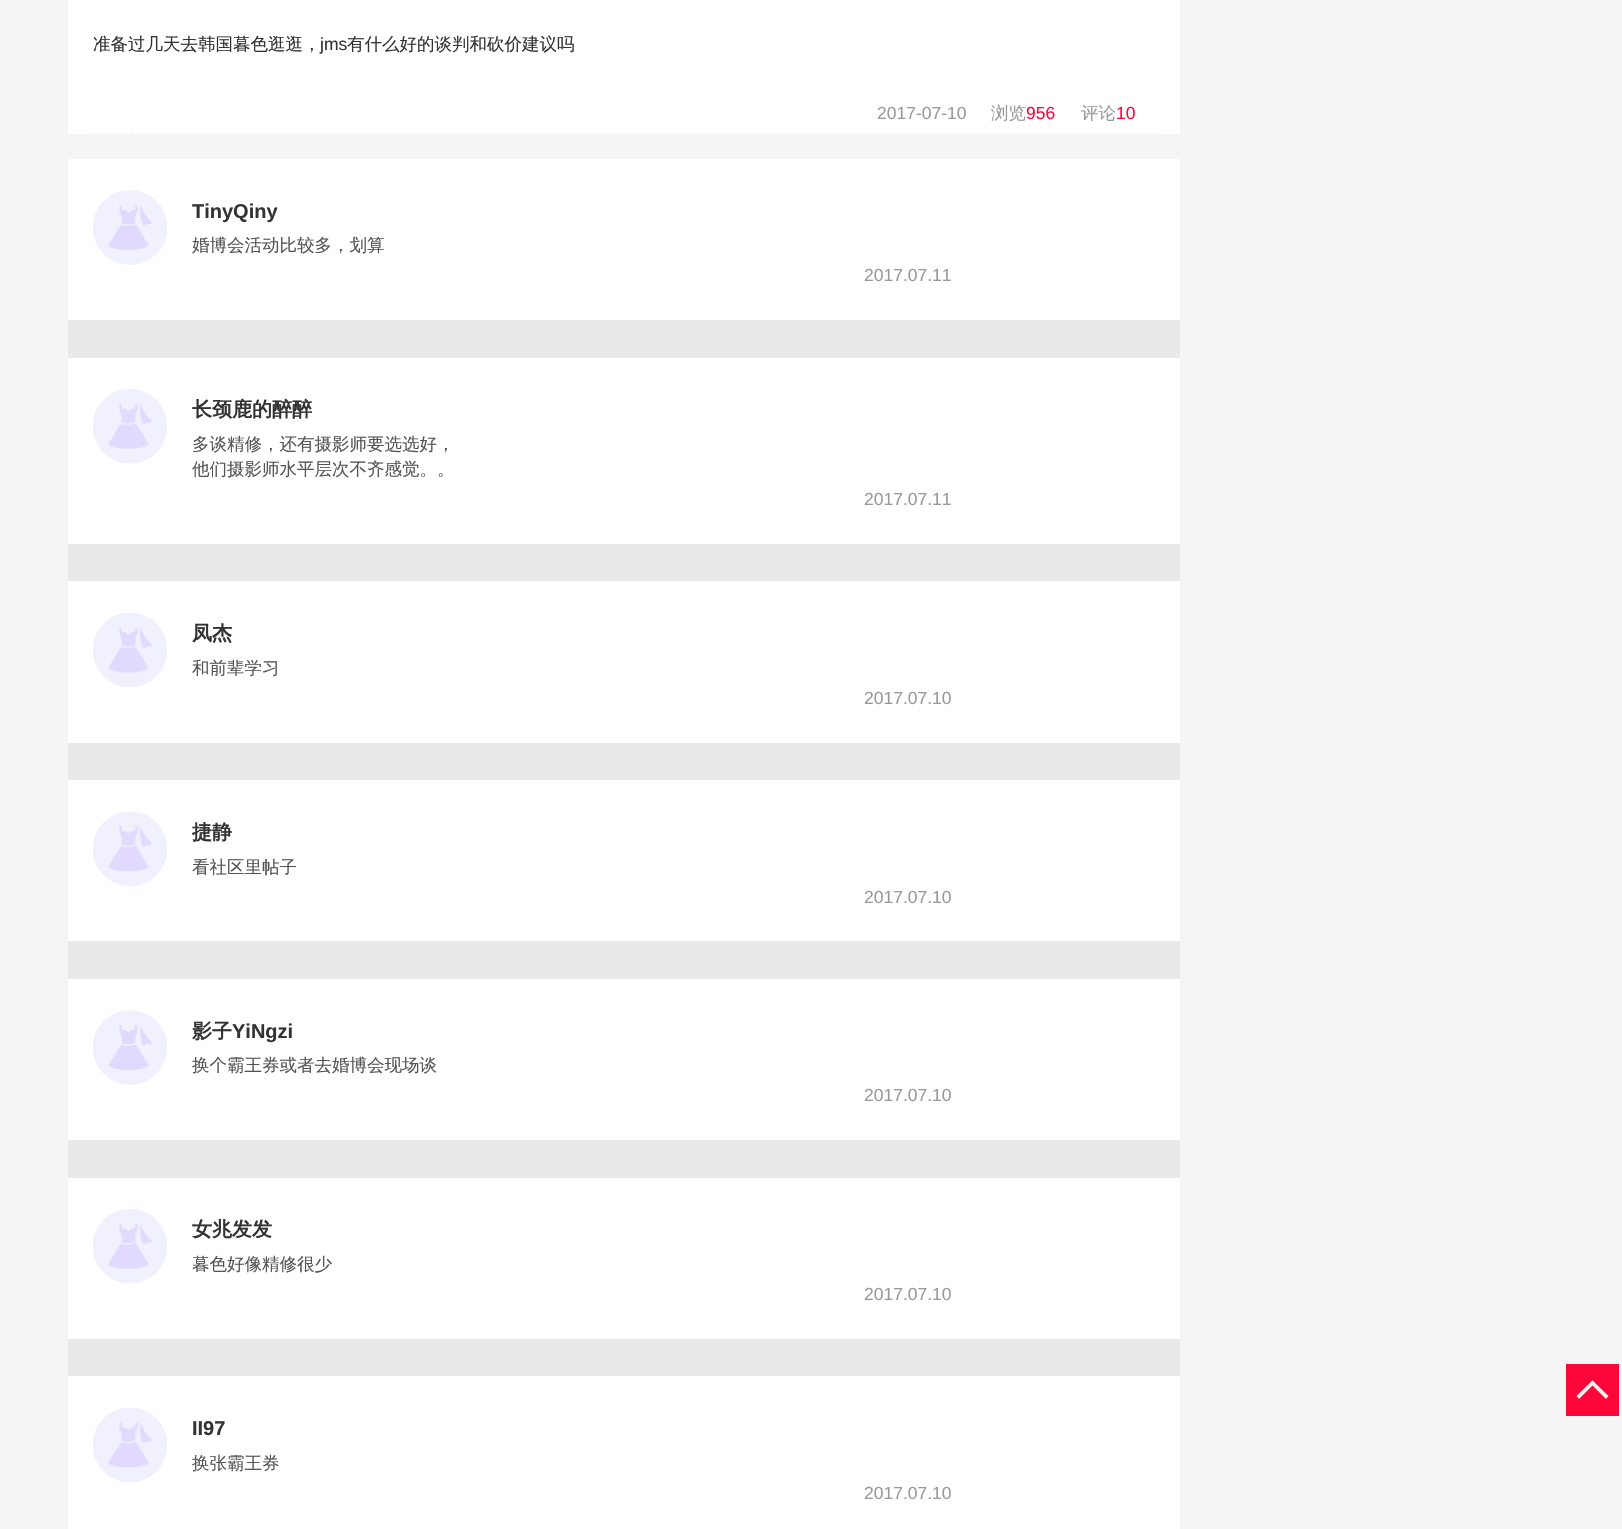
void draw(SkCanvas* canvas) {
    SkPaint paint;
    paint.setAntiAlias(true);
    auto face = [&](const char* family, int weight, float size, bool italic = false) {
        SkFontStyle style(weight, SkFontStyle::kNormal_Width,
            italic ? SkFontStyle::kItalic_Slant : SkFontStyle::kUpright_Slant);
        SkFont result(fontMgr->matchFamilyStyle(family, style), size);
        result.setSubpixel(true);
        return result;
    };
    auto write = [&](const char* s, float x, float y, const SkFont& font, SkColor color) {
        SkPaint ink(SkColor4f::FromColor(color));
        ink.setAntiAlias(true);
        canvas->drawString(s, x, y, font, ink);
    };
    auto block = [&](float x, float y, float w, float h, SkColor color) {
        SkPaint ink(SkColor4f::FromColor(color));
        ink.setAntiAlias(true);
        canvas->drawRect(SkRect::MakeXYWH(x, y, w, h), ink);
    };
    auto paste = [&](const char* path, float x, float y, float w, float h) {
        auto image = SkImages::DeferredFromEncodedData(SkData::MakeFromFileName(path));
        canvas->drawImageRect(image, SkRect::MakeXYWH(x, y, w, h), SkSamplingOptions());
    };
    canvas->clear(SkColorSetRGB(245, 245, 245));
    block(68, 0, 1112, 134, SK_ColorWHITE);
    paint.setStyle(SkPaint::kStroke_Style);
    paint.setStrokeWidth(1.2f);
    paint.setColor(SkColorSetRGB(245, 245, 245));
    paint.setPathEffect(SkDashPathEffect::Make({{3.75f, 2.51f}}, 0));
    canvas->drawPath(SkPathBuilder().moveTo(92.5f, 133).lineTo(1155, 133).detach(), paint);
    paint.setPathEffect(nullptr);
    auto kFont1 = face("WenQuanYi Zen Hei", 500, 17.5f);
    write("准备过几天去韩国暮色逛逛，", 93, 50, kFont1, SkColorSetRGB(51, 51, 51));
    auto kFont2 = face("Liberation Sans", 400, 17.5f);
    write("jms", 320, 50, kFont2, SkColorSetRGB(51, 51, 51));
    write("有什么好的谈判和砍价建议吗", 347, 50, kFont1, SkColorSetRGB(51, 51, 51));
    write("2017-07-10", 877, 119, kFont2, SkColorSetRGB(153, 153, 153));
    write("浏览", 991, 119, kFont1, SkColorSetRGB(153, 153, 153));
    write("956", 1026, 119, kFont2, SkColorSetRGB(255, 6, 59));
    write("评论", 1081, 119, kFont1, SkColorSetRGB(153, 153, 153));
    write("10", 1116, 119, kFont2, SkColorSetRGB(255, 6, 59));
    block(68, 159, 1112, 161, SK_ColorWHITE);
    block(68, 320, 1112, 38, SkColorSetRGB(233, 233, 233));
    paste("pic1.png", 93, 190, 74, 75);
    auto kFont3 = face("Liberation Sans", 700, 20);
    write("TinyQiny", 192, 218, kFont3, SkColorSetRGB(51, 51, 51));
    write("婚博会活动比较多，划算", 192, 251, kFont1, SkColorSetRGB(85, 85, 85));
    write("2017.07.11", 864, 281, kFont2, SkColorSetRGB(153, 153, 153));
    block(68, 358, 1112, 186, SK_ColorWHITE);
    block(68, 544, 1112, 37, SkColorSetRGB(233, 233, 233));
    paste("pic2.png", 93, 389, 74, 75);
    auto kFont4 = face("WenQuanYi Zen Hei", 700, 20);
    write("长颈鹿的醉醉", 192, 416, kFont4, SkColorSetRGB(51, 51, 51));
    write("多谈精修，还有摄影师要选选好，", 192, 450, kFont1, SkColorSetRGB(85, 85, 85));
    write("他们摄影师水平层次不齐感觉。。", 192, 475, kFont1, SkColorSetRGB(85, 85, 85));
    write("2017.07.11", 864, 505, kFont2, SkColorSetRGB(153, 153, 153));
    block(68, 581, 1112, 162, SK_ColorWHITE);
    block(68, 743, 1112, 37, SkColorSetRGB(233, 233, 233));
    paste("pic3.png", 93, 613, 74, 74);
    write("凤杰", 192, 640, kFont4, SkColorSetRGB(51, 51, 51));
    write("和前辈学习", 192, 674, kFont1, SkColorSetRGB(85, 85, 85));
    write("2017.07.10", 864, 704, kFont2, SkColorSetRGB(153, 153, 153));
    block(68, 780, 1112, 161, SK_ColorWHITE);
    block(68, 941, 1112, 38, SkColorSetRGB(233, 233, 233));
    paste("pic4.png", 93, 811, 74, 75);
    write("捷静", 192, 839, kFont4, SkColorSetRGB(51, 51, 51));
    write("看社区里帖子", 192, 873, kFont1, SkColorSetRGB(85, 85, 85));
    write("2017.07.10", 864, 903, kFont2, SkColorSetRGB(153, 153, 153));
    block(68, 979, 1112, 161, SK_ColorWHITE);
    block(68, 1140, 1112, 38, SkColorSetRGB(233, 233, 233));
    paste("pic5.png", 93, 1010, 74, 75);
    write("影子", 192, 1038, kFont4, SkColorSetRGB(51, 51, 51));
    write("YiNgzi", 232, 1038, kFont3, SkColorSetRGB(51, 51, 51));
    write("换个霸王券或者去婚博会现场谈", 192, 1071, kFont1, SkColorSetRGB(85, 85, 85));
    write("2017.07.10", 864, 1101, kFont2, SkColorSetRGB(153, 153, 153));
    block(68, 1178, 1112, 161, SK_ColorWHITE);
    block(68, 1339, 1112, 37, SkColorSetRGB(233, 233, 233));
    paste("pic6.png", 93, 1209, 74, 75);
    write("女兆发发", 192, 1236, kFont4, SkColorSetRGB(51, 51, 51));
    write("暮色好像精修很少", 192, 1270, kFont1, SkColorSetRGB(85, 85, 85));
    write("2017.07.10", 864, 1300, kFont2, SkColorSetRGB(153, 153, 153));
    block(68, 1376, 1112, 153, SK_ColorWHITE);
    paste("pic3.png", 93, 1408, 74, 74);
    write("II97", 192, 1435, kFont3, SkColorSetRGB(51, 51, 51));
    write("换张霸王券", 192, 1469, kFont1, SkColorSetRGB(85, 85, 85));
    write("2017.07.10", 864, 1499, kFont2, SkColorSetRGB(153, 153, 153));
    block(1566, 1364, 53, 52, SkColorSetRGB(255, 6, 59));
    paint.setStyle(SkPaint::kFill_Style);
    paint.setColor(SkColorSetRGB(238, 238, 238));
    canvas->drawPath(SkPathBuilder().moveTo(1576.5f, 1396).lineTo(1592.5f, 1380.5f).lineTo(1595, 1383).lineTo(1579, 1399).close().detach(), paint);
    canvas->drawPath(SkPathBuilder().moveTo(1590, 1383).lineTo(1592.5f, 1380.5f).lineTo(1608.5f, 1396).lineTo(1606, 1399).close().detach(), paint);
}
